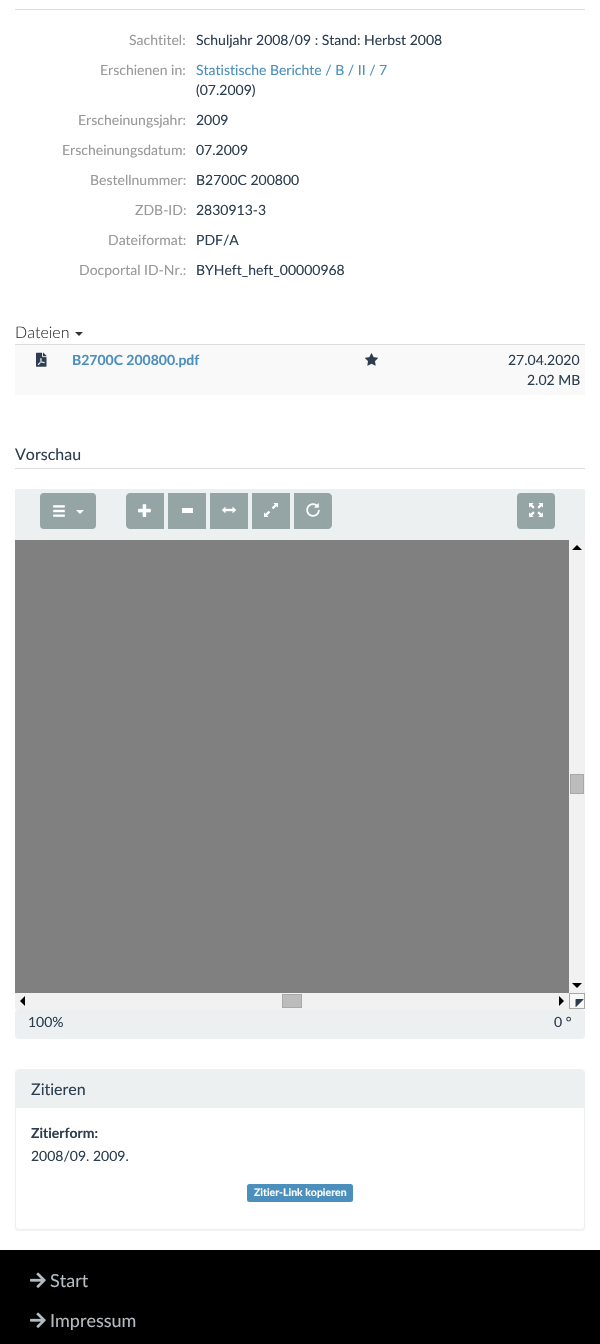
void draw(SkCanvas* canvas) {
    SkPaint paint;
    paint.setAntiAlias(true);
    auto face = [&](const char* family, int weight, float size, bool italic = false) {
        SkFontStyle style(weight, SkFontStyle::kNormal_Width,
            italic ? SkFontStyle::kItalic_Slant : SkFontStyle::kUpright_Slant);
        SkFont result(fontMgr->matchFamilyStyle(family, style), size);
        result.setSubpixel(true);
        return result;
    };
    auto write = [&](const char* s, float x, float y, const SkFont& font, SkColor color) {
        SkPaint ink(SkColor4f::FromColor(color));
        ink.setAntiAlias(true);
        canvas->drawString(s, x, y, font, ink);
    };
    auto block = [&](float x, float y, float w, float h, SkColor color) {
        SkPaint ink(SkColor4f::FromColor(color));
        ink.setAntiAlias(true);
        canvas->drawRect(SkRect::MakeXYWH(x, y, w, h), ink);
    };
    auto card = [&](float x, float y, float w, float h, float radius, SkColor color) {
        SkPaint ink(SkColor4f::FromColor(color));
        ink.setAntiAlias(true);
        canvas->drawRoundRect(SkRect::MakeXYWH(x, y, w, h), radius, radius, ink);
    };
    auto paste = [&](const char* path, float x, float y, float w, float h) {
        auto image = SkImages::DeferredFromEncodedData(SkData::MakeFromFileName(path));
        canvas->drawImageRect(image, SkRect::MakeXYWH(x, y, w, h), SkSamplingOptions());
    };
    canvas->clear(SK_ColorWHITE);
    block(15, 9, 570, 1, SkColorSetRGB(221, 221, 221));
    auto kFont1 = face("Lato", 400, 14);
    write("Sachtitel:", 129, 45, kFont1, SkColorSetRGB(153, 153, 153));
    write("Schuljahr 2008/09 : Stand: Herbst 2008", 196, 45, kFont1, SkColorSetRGB(44, 62, 80));
    write("Erschienen in:", 100, 75, kFont1, SkColorSetRGB(153, 153, 153));
    write("Statistische Berichte / B / II / 7", 196, 75, kFont1, SkColorSetRGB(75, 143, 188));
    write("(07.2009)", 196, 95, kFont1, SkColorSetRGB(44, 62, 80));
    write("Erscheinungsjahr:", 78, 125, kFont1, SkColorSetRGB(153, 153, 153));
    write("2009", 196, 125, kFont1, SkColorSetRGB(44, 62, 80));
    write("Erscheinungsdatum:", 62, 155, kFont1, SkColorSetRGB(153, 153, 153));
    write("07.2009", 196, 155, kFont1, SkColorSetRGB(44, 62, 80));
    write("Bestellnummer:", 90, 185, kFont1, SkColorSetRGB(153, 153, 153));
    write("B2700C 200800", 196, 185, kFont1, SkColorSetRGB(44, 62, 80));
    write("ZDB-ID:", 135, 215, kFont1, SkColorSetRGB(153, 153, 153));
    write("2830913-3", 196, 215, kFont1, SkColorSetRGB(44, 62, 80));
    write("Dateiformat:", 108, 245, kFont1, SkColorSetRGB(153, 153, 153));
    write("PDF/A", 196, 245, kFont1, SkColorSetRGB(44, 62, 80));
    write("Docportal ID-Nr.:", 79, 275, kFont1, SkColorSetRGB(153, 153, 153));
    write("BYHeft_heft_00000968", 196, 275, kFont1, SkColorSetRGB(44, 62, 80));
    block(15, 344, 570, 1, SkColorSetRGB(221, 221, 221));
    auto kFont2 = face("Lato", 300, 16);
    write("Dateien", 15, 338, kFont2, SkColorSetRGB(51, 51, 51));
    paint.setColor(SkColorSetRGB(51, 51, 51));
    canvas->drawPath(SkPathBuilder().moveTo(75, 332).lineTo(83, 332).lineTo(79, 336).close().detach(), paint);
    block(15, 345, 570, 50, SkColorSetRGB(249, 249, 249));
    paste("pic1.png", 36, 352, 11, 15);
    auto kFont3 = face("Lato", 700, 14);
    write("B2700C 200800.pdf", 72, 365, kFont3, SkColorSetRGB(75, 143, 188));
    paste("pic2.png", 365, 353, 13, 13);
    write("27.04.2020", 508, 365, kFont1, SkColorSetRGB(44, 62, 80));
    write("2.02 MB", 527, 385, kFont1, SkColorSetRGB(44, 62, 80));
    block(15, 468, 570, 1, SkColorSetRGB(221, 221, 221));
    auto kFont4 = face("Lato", 400, 16);
    write("Vorschau", 15, 460, kFont4, SkColorSetRGB(44, 62, 80));
    block(15, 489, 570, 51, SkColorSetRGB(236, 240, 241));
    paint.setColor(SkColorSetRGB(149, 165, 166));
    canvas->drawRoundRect(SkRect::MakeXYWH(41, 494, 54, 34), 3, 3, paint);
    paint.setStyle(SkPaint::kStroke_Style);
    paint.setStrokeWidth(2);
    canvas->drawRoundRect(SkRect::MakeXYWH(41, 494, 54, 34), 3, 3, paint);
    paste("pic3.png", 53, 505, 12, 12);
    paint.setStyle(SkPaint::kFill_Style);
    paint.setColor(SK_ColorWHITE);
    canvas->drawPath(SkPathBuilder().moveTo(76, 510).lineTo(84, 510).lineTo(80, 514).close().detach(), paint);
    paint.setColor(SkColorSetRGB(149, 165, 166));
    canvas->drawPath(SkPathBuilder().moveTo(130, 494).lineTo(163, 494).lineTo(163, 528).lineTo(130, 528).cubicTo(128.5f, 528, 127, 526.5f, 127, 525).lineTo(127, 497).cubicTo(127, 495.5f, 128.5f, 494, 130, 494).close().detach(), paint);
    paint.setStyle(SkPaint::kStroke_Style);
    canvas->drawPath(SkPathBuilder().moveTo(130, 494).lineTo(163, 494).lineTo(163, 528).lineTo(130, 528).cubicTo(128.5f, 528, 127, 526.5f, 127, 525).lineTo(127, 497).cubicTo(127, 495.5f, 128.5f, 494, 130, 494).close().detach(), paint);
    paste("pic4.png", 138, 504, 13, 13);
    block(168, 493, 38, 36, SkColorSetRGB(149, 165, 166));
    block(182, 508, 11, 5, SK_ColorWHITE);
    block(210, 493, 38, 36, SkColorSetRGB(149, 165, 166));
    paste("pic5.png", 222, 506, 14, 8);
    block(252, 493, 38, 36, SkColorSetRGB(149, 165, 166));
    paste("pic6.png", 264, 503, 14, 14);
    paint.setStyle(SkPaint::kFill_Style);
    canvas->drawPath(SkPathBuilder().moveTo(295, 494).lineTo(328, 494).cubicTo(329.5f, 494, 331, 495.5f, 331, 497).lineTo(331, 525).cubicTo(331, 526.5f, 329.5f, 528, 328, 528).lineTo(295, 528).close().detach(), paint);
    paint.setStyle(SkPaint::kStroke_Style);
    canvas->drawPath(SkPathBuilder().moveTo(295, 494).lineTo(328, 494).cubicTo(329.5f, 494, 331, 495.5f, 331, 497).lineTo(331, 525).cubicTo(331, 526.5f, 329.5f, 528, 328, 528).lineTo(295, 528).close().detach(), paint);
    paste("pic7.png", 306, 503, 14, 14);
    paint.setStyle(SkPaint::kFill_Style);
    canvas->drawRoundRect(SkRect::MakeXYWH(518, 494, 36, 34), 3, 3, paint);
    paint.setStyle(SkPaint::kStroke_Style);
    canvas->drawRoundRect(SkRect::MakeXYWH(518, 494, 36, 34), 3, 3, paint);
    paste("pic8.png", 529, 503, 14, 14);
    block(15, 540, 554, 453, SkColorSetRGB(128, 128, 128));
    block(569, 540, 16, 453, SkColorSetRGB(241, 241, 241));
    paint.setStyle(SkPaint::kFill_Style);
    paint.setColor(SK_ColorBLACK);
    canvas->drawPath(SkPathBuilder().moveTo(582, 550).lineTo(572, 550).lineTo(577, 545).close().detach(), paint);
    paint.setColor(SkColorSetRGB(188, 188, 188));
    canvas->drawRect(SkRect::MakeXYWH(570.5f, 774.5f, 13, 19), paint);
    paint.setStyle(SkPaint::kStroke_Style);
    paint.setStrokeWidth(1);
    paint.setColor(SkColorSetRGB(168, 168, 168));
    canvas->drawRect(SkRect::MakeXYWH(570.5f, 774.5f, 13, 19), paint);
    paint.setStyle(SkPaint::kFill_Style);
    paint.setColor(SK_ColorBLACK);
    canvas->drawPath(SkPathBuilder().moveTo(572, 983).lineTo(582, 983).lineTo(577, 988).close().detach(), paint);
    block(15, 993, 554, 16, SkColorSetRGB(241, 241, 241));
    canvas->drawPath(SkPathBuilder().moveTo(25, 996).lineTo(25, 1006).lineTo(20, 1001).close().detach(), paint);
    paint.setColor(SkColorSetRGB(188, 188, 188));
    canvas->drawRect(SkRect::MakeXYWH(282.5f, 994.5f, 19, 13), paint);
    paint.setStyle(SkPaint::kStroke_Style);
    paint.setColor(SkColorSetRGB(168, 168, 168));
    canvas->drawRect(SkRect::MakeXYWH(282.5f, 994.5f, 19, 13), paint);
    paint.setStyle(SkPaint::kFill_Style);
    paint.setColor(SK_ColorBLACK);
    canvas->drawPath(SkPathBuilder().moveTo(559, 1006).lineTo(559, 996).lineTo(564, 1001).close().detach(), paint);
    paint.setColor(SkColorSetRGB(248, 248, 248));
    canvas->drawRect(SkRect::MakeXYWH(569.5f, 993.5f, 15, 15), paint);
    paint.setStyle(SkPaint::kStroke_Style);
    paint.setColor(SkColorSetRGB(168, 168, 168));
    canvas->drawRect(SkRect::MakeXYWH(569.5f, 993.5f, 15, 15), paint);
    paste("pic9.png", 575, 999, 9, 8);
    card(15, 1009, 570, 30, 4, SkColorSetRGB(236, 240, 241));
    write("100%", 28, 1027, kFont1, SkColorSetRGB(44, 62, 80));
    write("0 °", 554, 1027, kFont1, SkColorSetRGB(44, 62, 80));
    paint.setStyle(SkPaint::kFill_Style);
    paint.setColor(SkColorSetARGB(13, 0, 0, 0));
    paint.setMaskFilter(SkMaskFilter::MakeBlur(kNormal_SkBlurStyle, 0.5f));
    canvas->drawRoundRect(SkRect::MakeXYWH(15, 1070, 570, 161), 4, 4, paint);
    paint.setMaskFilter(nullptr);
    paint.setColor(SK_ColorWHITE);
    canvas->drawRoundRect(SkRect::MakeXYWH(15.5f, 1069.5f, 569, 160), 3.5f, 3.5f, paint);
    paint.setStyle(SkPaint::kStroke_Style);
    paint.setColor(SkColorSetRGB(236, 240, 241));
    canvas->drawRoundRect(SkRect::MakeXYWH(15.5f, 1069.5f, 569, 160), 3.5f, 3.5f, paint);
    paint.setStyle(SkPaint::kFill_Style);
    canvas->drawPath(SkPathBuilder().moveTo(19, 1070).lineTo(581, 1070).cubicTo(582.5f, 1070, 584, 1071.5f, 584, 1073).lineTo(584, 1108).lineTo(16, 1108).lineTo(16, 1073).cubicTo(16, 1071.5f, 17.5f, 1070, 19, 1070).close().detach(), paint);
    write("Zitieren", 31, 1095, kFont4, SkColorSetRGB(44, 62, 80));
    write("Zitierform:", 31, 1138, kFont3, SkColorSetRGB(44, 62, 80));
    write("2008/09. 2009.", 31, 1161, kFont1, SkColorSetRGB(44, 62, 80));
    card(247, 1184, 106, 18, 2.5f, SkColorSetRGB(75, 143, 188));
    auto kFont5 = face("Lato", 700, 10.5f);
    write("Zitier-Link kopieren", 254, 1196, kFont5, SK_ColorWHITE);
    block(0, 1250, 600, 94, SK_ColorBLACK);
    paste("pic10.png", 30, 1272, 16, 16);
    auto kFont6 = face("Lato", 400, 18);
    write("Start", 50, 1287, kFont6, SkColorSetRGB(180, 188, 194));
    paste("pic10.png", 30, 1312, 16, 16);
    write("Impressum", 50, 1327, kFont6, SkColorSetRGB(180, 188, 194));
}
